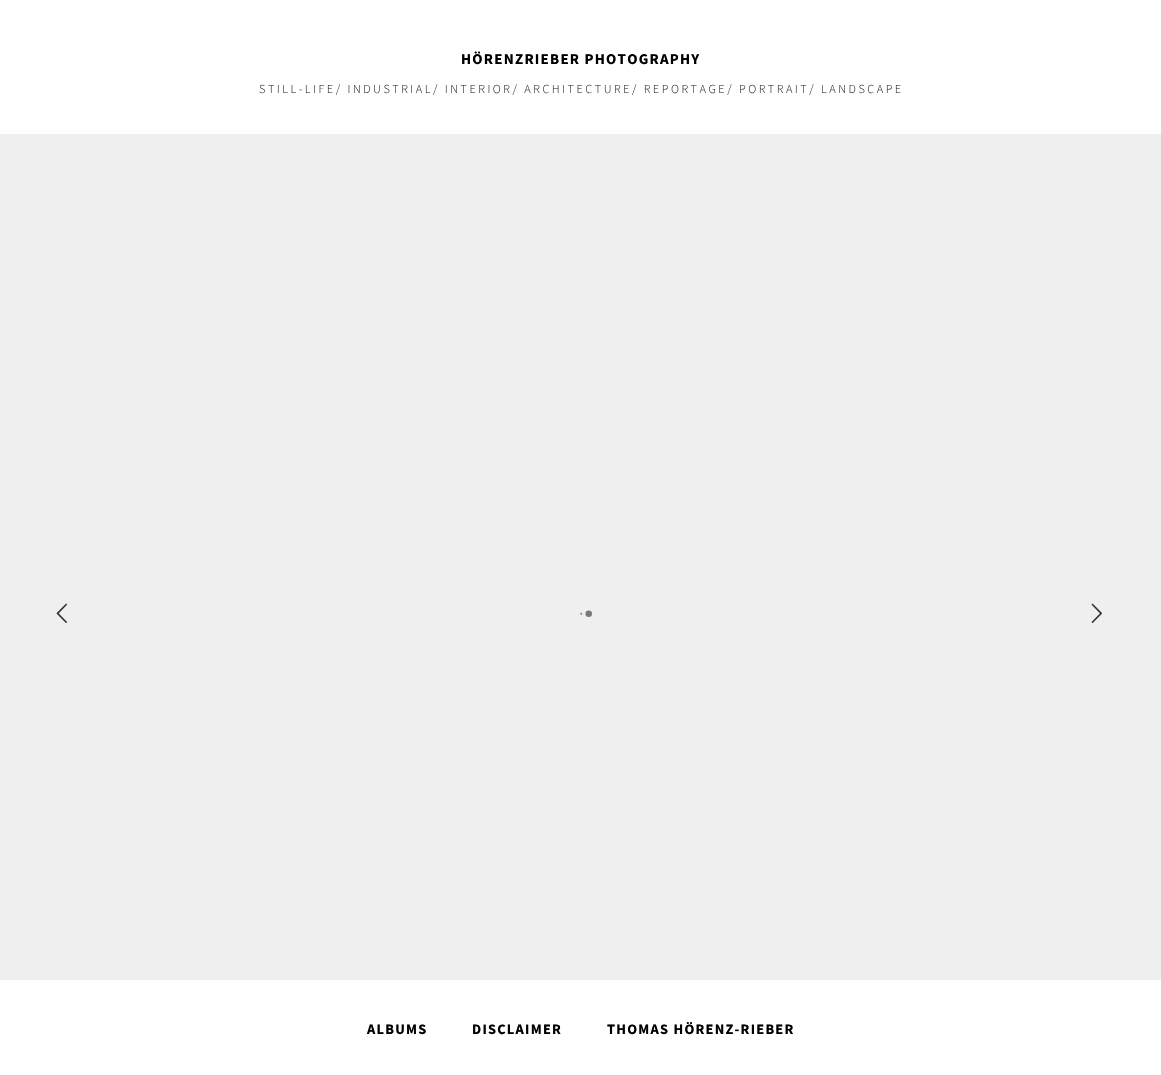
void draw(SkCanvas* canvas) {
    SkPaint paint;
    paint.setAntiAlias(true);
    auto face = [&](const char* family, int weight, float size, bool italic = false) {
        SkFontStyle style(weight, SkFontStyle::kNormal_Width,
            italic ? SkFontStyle::kItalic_Slant : SkFontStyle::kUpright_Slant);
        SkFont result(fontMgr->matchFamilyStyle(family, style), size);
        result.setSubpixel(true);
        return result;
    };
    auto writeSpaced = [&](const char* s, float x, float y, const SkFont& font, const SkPaint& ink, float letter, float word) {
        std::vector<SkGlyphID> glyphs(font.countText(s, strlen(s), SkTextEncoding::kUTF8));
        std::vector<float> xs(glyphs.size());
        font.textToGlyphs(s, strlen(s), SkTextEncoding::kUTF8, glyphs);
        font.getXPos(glyphs, xs, x);
        float extra = 0;
        for (size_t i = 0; i < glyphs.size(); i++) {
            xs[i] += extra;
            extra += letter + word * (glyphs[i] == font.unicharToGlyph(' '));
        }
        canvas->drawTextBlob(SkTextBlob::MakeFromPosHGlyphs(glyphs, xs, y, font), 0, 0, ink);
    };
    auto block = [&](float x, float y, float w, float h, SkColor color) {
        SkPaint ink(SkColor4f::FromColor(color));
        ink.setAntiAlias(true);
        canvas->drawRect(SkRect::MakeXYWH(x, y, w, h), ink);
    };
    auto paste = [&](const char* path, float x, float y, float w, float h) {
        auto image = SkImages::DeferredFromEncodedData(SkData::MakeFromFileName(path));
        canvas->drawImageRect(image, SkRect::MakeXYWH(x, y, w, h), SkSamplingOptions());
    };
    canvas->clear(SkColorSetRGB(239, 239, 239));
    block(0, 0, 1161, 134, SK_ColorWHITE);
    auto kFont1 = face("Source Sans Pro", 700, 15);
    paint.setColor(SK_ColorBLACK);
    writeSpaced("HÖRENZRIEBER PHOTOGRAPHY", 461, 64, kFont1, paint, 1.25f, 0);
    auto kFont2 = face("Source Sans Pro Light", 300, 12.25f);
    paint.setColor(SkColorSetRGB(51, 51, 51));
    writeSpaced("STILL-LIFE/ INDUSTRIAL/ INTERIOR/ ARCHITECTURE/ REPORTAGE/ PORTRAIT/ LANDSCAPE", 259, 93, kFont2, paint, 2.5f, 0);
    paste("pic1.png", 56, 603, 11, 20);
    paste("pic2.png", 580, 610, 12, 7);
    paste("pic3.png", 1091, 603, 11, 20);
    block(0, 980, 1161, 95, SK_ColorWHITE);
    auto kFont3 = face("Source Sans Pro", 700, 14.4f);
    paint.setColor(SK_ColorBLACK);
    writeSpaced("ALBUMS", 367, 1034, kFont3, paint, 1.25f, 0);
    writeSpaced("DISCLAIMER", 472, 1034, kFont3, paint, 1.25f, 0);
    writeSpaced("THOMAS HÖRENZ-RIEBER", 607, 1034, kFont3, paint, 1.25f, 0);
}
